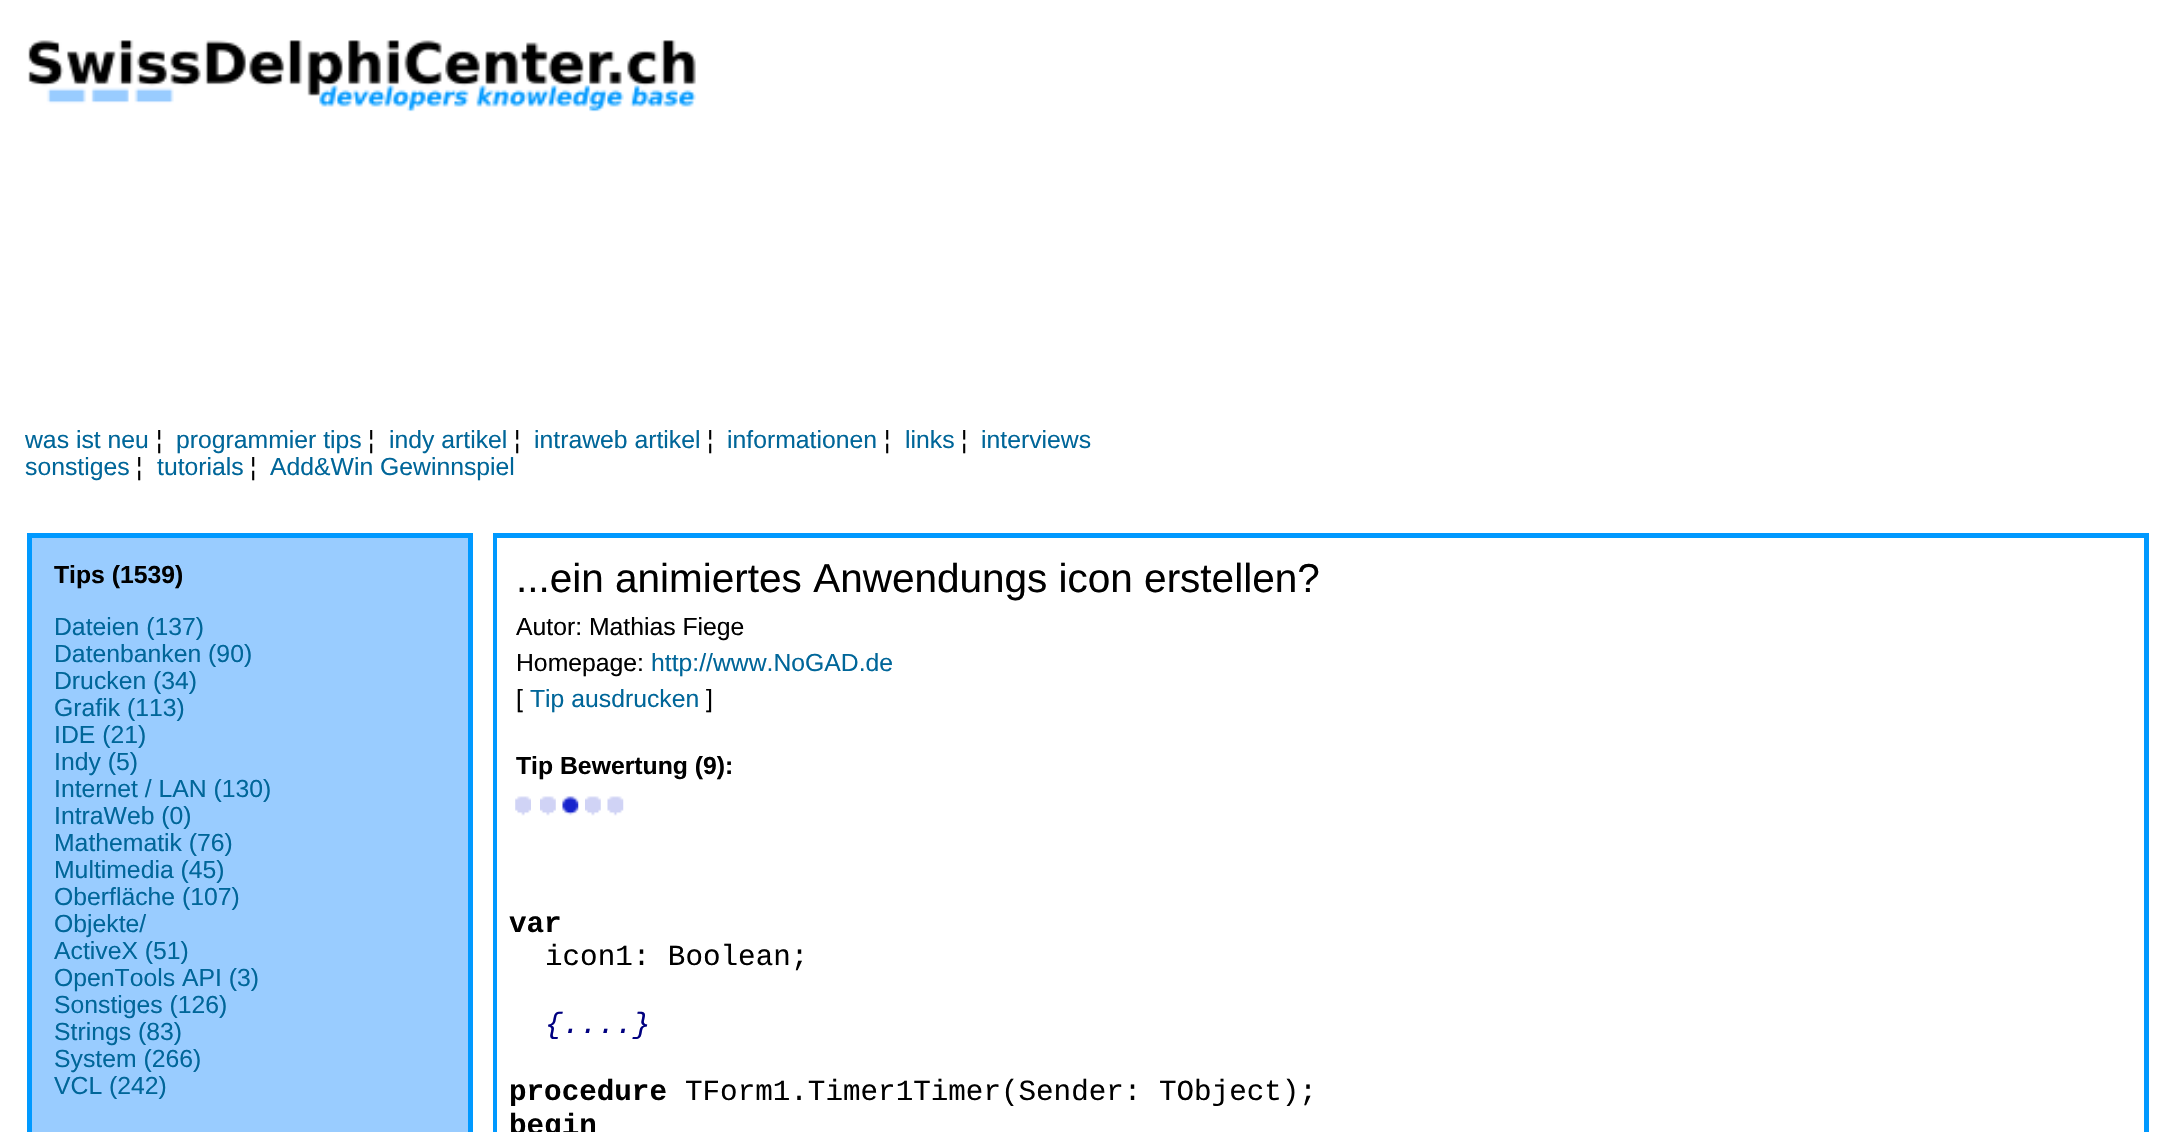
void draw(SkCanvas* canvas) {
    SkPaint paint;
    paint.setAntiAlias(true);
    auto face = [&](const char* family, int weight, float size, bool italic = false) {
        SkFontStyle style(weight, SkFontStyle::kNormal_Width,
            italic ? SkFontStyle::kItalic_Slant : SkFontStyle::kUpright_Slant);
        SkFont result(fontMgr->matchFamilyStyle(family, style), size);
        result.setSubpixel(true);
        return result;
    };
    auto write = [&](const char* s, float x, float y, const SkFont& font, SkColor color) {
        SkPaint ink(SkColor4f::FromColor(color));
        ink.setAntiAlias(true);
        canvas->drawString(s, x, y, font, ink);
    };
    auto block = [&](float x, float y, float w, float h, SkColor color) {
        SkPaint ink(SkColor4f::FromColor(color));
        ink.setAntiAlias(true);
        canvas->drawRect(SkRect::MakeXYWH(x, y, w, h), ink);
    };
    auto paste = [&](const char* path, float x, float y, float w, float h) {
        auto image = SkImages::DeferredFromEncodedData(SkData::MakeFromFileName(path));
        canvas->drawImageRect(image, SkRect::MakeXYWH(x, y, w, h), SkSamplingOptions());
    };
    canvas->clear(SK_ColorWHITE);
    paste("pic1.png", 28, 40, 668, 72);
    auto kFont1 = face("Liberation Sans", 400, 24.75f);
    write("was ist neu", 25, 448, kFont1, SkColorSetRGB(0, 102, 153));
    write("¦", 156, 448, kFont1, SK_ColorBLACK);
    write("programmier tips", 176, 448, kFont1, SkColorSetRGB(0, 102, 153));
    write("¦", 368, 448, kFont1, SK_ColorBLACK);
    write("indy artikel", 389, 448, kFont1, SkColorSetRGB(0, 102, 153));
    write("¦", 514, 448, kFont1, SK_ColorBLACK);
    write("intraweb artikel", 534, 448, kFont1, SkColorSetRGB(0, 102, 153));
    write("¦", 707, 448, kFont1, SK_ColorBLACK);
    write("informationen", 727, 448, kFont1, SkColorSetRGB(0, 102, 153));
    write("¦", 884, 448, kFont1, SK_ColorBLACK);
    write("links", 905, 448, kFont1, SkColorSetRGB(0, 102, 153));
    write("¦", 961, 448, kFont1, SK_ColorBLACK);
    write("interviews", 981, 448, kFont1, SkColorSetRGB(0, 102, 153));
    write("sonstiges", 25, 475, kFont1, SkColorSetRGB(0, 102, 153));
    write("¦", 136, 475, kFont1, SK_ColorBLACK);
    write("tutorials", 157, 475, kFont1, SkColorSetRGB(0, 102, 153));
    write("¦", 250, 475, kFont1, SK_ColorBLACK);
    write("Add&Win Gewinnspiel", 270, 475, kFont1, SkColorSetRGB(0, 102, 153));
    block(27, 533, 446, 599, SkColorSetRGB(0, 153, 255));
    block(32, 538, 436, 594, SkColorSetRGB(153, 204, 255));
    auto kFont2 = face("Liberation Sans", 700, 24.75f);
    write("Tips (1539)", 54, 583, kFont2, SK_ColorBLACK);
    write("Dateien (137)", 54, 635, kFont1, SkColorSetRGB(0, 102, 153));
    write("Datenbanken (90)", 54, 662, kFont1, SkColorSetRGB(0, 102, 153));
    write("Drucken (34)", 54, 689, kFont1, SkColorSetRGB(0, 102, 153));
    write("Grafik (113)", 54, 716, kFont1, SkColorSetRGB(0, 102, 153));
    write("IDE (21)", 54, 743, kFont1, SkColorSetRGB(0, 102, 153));
    write("Indy (5)", 54, 770, kFont1, SkColorSetRGB(0, 102, 153));
    write("Internet / LAN (130)", 54, 797, kFont1, SkColorSetRGB(0, 102, 153));
    write("IntraWeb (0)", 54, 824, kFont1, SkColorSetRGB(0, 102, 153));
    write("Mathematik (76)", 54, 851, kFont1, SkColorSetRGB(0, 102, 153));
    write("Multimedia (45)", 54, 878, kFont1, SkColorSetRGB(0, 102, 153));
    write("Oberfläche (107)", 54, 905, kFont1, SkColorSetRGB(0, 102, 153));
    write("Objekte/", 54, 932, kFont1, SkColorSetRGB(0, 102, 153));
    write("ActiveX (51)", 54, 959, kFont1, SkColorSetRGB(0, 102, 153));
    write("OpenTools API (3)", 54, 986, kFont1, SkColorSetRGB(0, 102, 153));
    write("Sonstiges (126)", 54, 1013, kFont1, SkColorSetRGB(0, 102, 153));
    write("Strings (83)", 54, 1040, kFont1, SkColorSetRGB(0, 102, 153));
    write("System (266)", 54, 1067, kFont1, SkColorSetRGB(0, 102, 153));
    write("VCL (242)", 54, 1094, kFont1, SkColorSetRGB(0, 102, 153));
    block(493, 533, 1656, 599, SkColorSetRGB(0, 153, 255));
    block(497, 538, 1647, 594, SK_ColorWHITE);
    auto kFont3 = face("Liberation Sans", 400, 40.5f);
    write("...ein animiertes Anwendungs icon erstellen?", 516, 592, kFont3, SK_ColorBLACK);
    write("Autor: Mathias Fiege", 516, 635, kFont1, SK_ColorBLACK);
    write("Homepage:", 516, 671, kFont1, SK_ColorBLACK);
    write("http://www.NoGAD.de", 651, 671, kFont1, SkColorSetRGB(0, 102, 153));
    write("[", 516, 707, kFont1, SK_ColorBLACK);
    write("Tip ausdrucken", 530, 707, kFont1, SkColorSetRGB(0, 102, 153));
    write("]", 706, 707, kFont1, SK_ColorBLACK);
    write("Tip Bewertung (9):", 516, 774, kFont2, SK_ColorBLACK);
    paste("pic2.png", 515, 796, 16, 20);
    paste("pic3.png", 540, 796, 16, 20);
    paste("pic4.png", 562, 796, 17, 20);
    paste("pic3.png", 585, 796, 16, 20);
    paste("pic5.png", 607, 796, 17, 20);
    auto kFont4 = face("Liberation Mono", 700, 29.25f);
    write("var", 509, 932, kFont4, SK_ColorBLACK);
    auto kFont5 = face("Liberation Mono", 400, 29.25f);
    write("icon1: Boolean;", 545, 965, kFont5, SK_ColorBLACK);
    auto kFont6 = face("Liberation Mono", 400, 29.25f, true);
    write("{....}", 545, 1033, kFont6, SkColorSetRGB(0, 0, 128));
    write("procedure", 509, 1100, kFont4, SK_ColorBLACK);
    write("TForm1.Timer1Timer(Sender: TObject);", 685, 1100, kFont5, SK_ColorBLACK);
    write("begin", 509, 1134, kFont4, SK_ColorBLACK);
}
